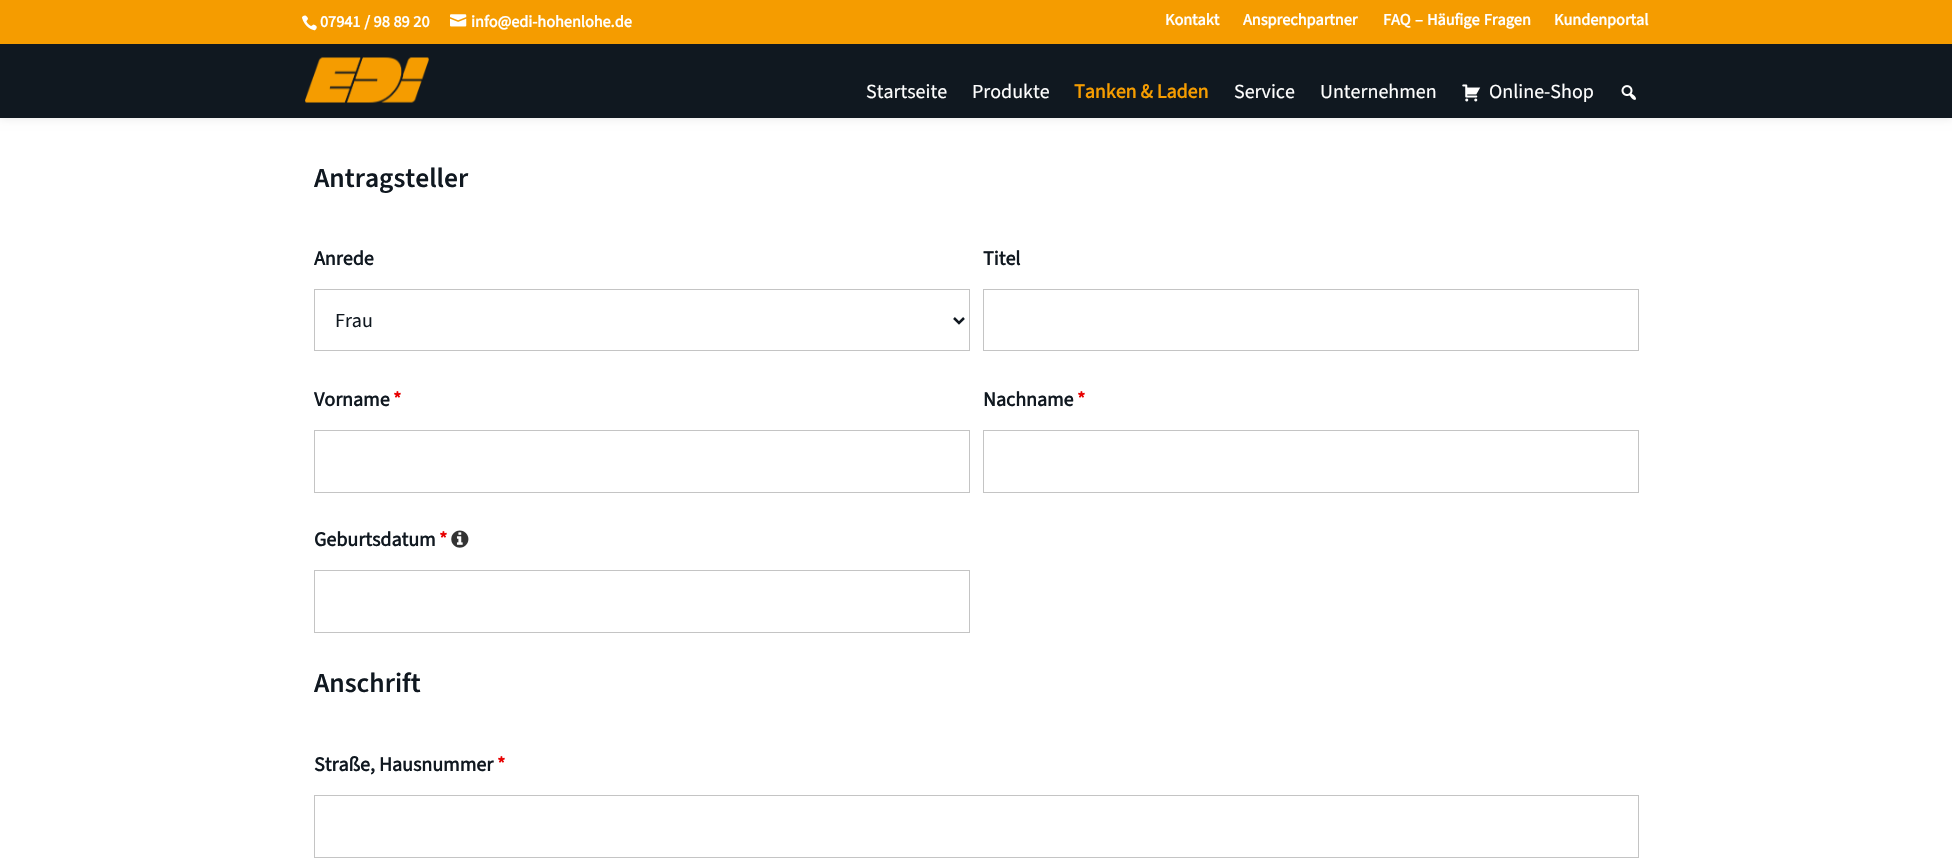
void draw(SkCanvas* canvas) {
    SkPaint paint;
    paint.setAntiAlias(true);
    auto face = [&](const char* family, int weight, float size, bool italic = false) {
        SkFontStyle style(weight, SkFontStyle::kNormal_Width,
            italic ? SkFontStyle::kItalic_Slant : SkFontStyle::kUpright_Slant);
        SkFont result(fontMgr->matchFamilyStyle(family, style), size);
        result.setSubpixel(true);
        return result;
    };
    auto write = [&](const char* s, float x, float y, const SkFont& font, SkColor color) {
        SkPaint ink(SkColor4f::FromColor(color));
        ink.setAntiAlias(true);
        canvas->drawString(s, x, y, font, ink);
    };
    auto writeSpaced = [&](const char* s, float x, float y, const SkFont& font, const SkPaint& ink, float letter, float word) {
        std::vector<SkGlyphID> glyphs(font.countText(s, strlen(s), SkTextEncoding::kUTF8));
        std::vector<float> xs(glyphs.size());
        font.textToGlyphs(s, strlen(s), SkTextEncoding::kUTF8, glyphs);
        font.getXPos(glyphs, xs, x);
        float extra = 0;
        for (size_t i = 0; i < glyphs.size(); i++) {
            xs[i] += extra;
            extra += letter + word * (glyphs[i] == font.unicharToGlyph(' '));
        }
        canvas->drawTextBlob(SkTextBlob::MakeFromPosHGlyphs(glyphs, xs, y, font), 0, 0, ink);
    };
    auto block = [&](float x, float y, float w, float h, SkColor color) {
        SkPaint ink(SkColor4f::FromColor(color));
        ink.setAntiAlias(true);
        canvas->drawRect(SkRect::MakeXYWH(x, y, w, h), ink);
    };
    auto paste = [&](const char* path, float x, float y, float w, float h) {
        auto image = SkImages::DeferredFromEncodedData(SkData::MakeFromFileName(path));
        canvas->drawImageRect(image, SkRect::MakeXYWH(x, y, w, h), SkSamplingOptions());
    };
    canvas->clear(SK_ColorWHITE);
    paint.setColor(SkColorSetARGB(26, 0, 0, 0));
    paint.setMaskFilter(SkMaskFilter::MakeBlur(kNormal_SkBlurStyle, 4.5f));
    canvas->drawRect(SkRect::MakeXYWH(0, 44, 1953, 74), paint);
    paint.setMaskFilter(nullptr);
    block(0, 0, 1952, 44, SkColorSetRGB(245, 156, 0));
    paste("pic1.png", 301, 15, 16, 16);
    auto kFont1 = face("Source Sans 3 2", 700, 16.25f);
    paint.setColor(SK_ColorWHITE);
    writeSpaced("07941 / 98 89 20", 320, 27, kFont1, paint, 0, 0.5f);
    paste("pic2.png", 450, 14, 17, 13);
    write("info@edi-hohenlohe.de", 471, 27, kFont1, SK_ColorWHITE);
    write("Kontakt", 1165, 25, kFont1, SK_ColorWHITE);
    write("Ansprechpartner", 1243, 25, kFont1, SK_ColorWHITE);
    writeSpaced("FAQ – Häufige Fragen", 1383, 25, kFont1, paint, 0, 1);
    write("Kundenportal", 1554, 25, kFont1, SK_ColorWHITE);
    block(0, 44, 1952, 74, SkColorSetRGB(16, 24, 32));
    paste("pic3.png", 305, 57, 124, 46);
    auto kFont2 = face("Source Sans 3", 400, 20);
    write("Startseite", 866, 98, kFont2, SK_ColorWHITE);
    write("Produkte", 972, 98, kFont2, SK_ColorWHITE);
    auto kFont3 = face("Source Sans 3", 700, 20);
    write("Tanken & Laden", 1074, 98, kFont3, SkColorSetRGB(245, 156, 0));
    write("Service", 1234, 98, kFont2, SK_ColorWHITE);
    write("Unternehmen", 1320, 98, kFont2, SK_ColorWHITE);
    paste("pic4.png", 1462, 84, 19, 18);
    write("Online-Shop", 1489, 98, kFont2, SK_ColorWHITE);
    paste("pic5.png", 1621, 85, 15, 15);
    auto kFont4 = face("Source Sans 3", 600, 27.5f);
    write("Antragsteller", 314, 187, kFont4, SkColorSetRGB(16, 24, 32));
    write("Anrede", 314, 265, kFont3, SkColorSetRGB(16, 24, 32));
    paint.setStyle(SkPaint::kStroke_Style);
    paint.setStrokeWidth(1);
    paint.setColor(SkColorSetRGB(196, 196, 196));
    canvas->drawRect(SkRect::MakeXYWH(314.5f, 289.5f, 655, 61), paint);
    paint.setStrokeWidth(2.5f);
    paint.setColor(SkColorSetRGB(16, 24, 32));
    canvas->drawPath(SkPathBuilder().moveTo(954, 318).lineTo(959, 323).lineTo(964, 318).detach(), paint);
    write("Frau", 335, 327, kFont2, SkColorSetRGB(16, 24, 32));
    write("Titel", 983, 265, kFont3, SkColorSetRGB(16, 24, 32));
    paint.setStrokeWidth(1);
    paint.setColor(SkColorSetRGB(196, 196, 196));
    canvas->drawRect(SkRect::MakeXYWH(983.5f, 289.5f, 655, 61), paint);
    write("Vorname", 314, 406, kFont3, SkColorSetRGB(16, 24, 32));
    write("*", 393, 406, kFont3, SkColorSetRGB(232, 0, 0));
    canvas->drawRect(SkRect::MakeXYWH(314.5f, 430.5f, 655, 62), paint);
    write("Nachname", 983, 406, kFont3, SkColorSetRGB(16, 24, 32));
    write("*", 1077, 406, kFont3, SkColorSetRGB(232, 0, 0));
    canvas->drawRect(SkRect::MakeXYWH(983.5f, 430.5f, 655, 62), paint);
    write("Geburtsdatum", 314, 546, kFont3, SkColorSetRGB(16, 24, 32));
    write("*", 439, 546, kFont3, SkColorSetRGB(232, 0, 0));
    paste("pic6.png", 451, 530, 18, 18);
    canvas->drawRect(SkRect::MakeXYWH(314.5f, 570.5f, 655, 62), paint);
    write("Anschrift", 314, 692, kFont4, SkColorSetRGB(16, 24, 32));
    write("Straße, Hausnummer", 314, 771, kFont3, SkColorSetRGB(16, 24, 32));
    write("*", 497, 771, kFont3, SkColorSetRGB(232, 0, 0));
    canvas->drawRect(SkRect::MakeXYWH(314.5f, 795.5f, 1324, 62), paint);
}
